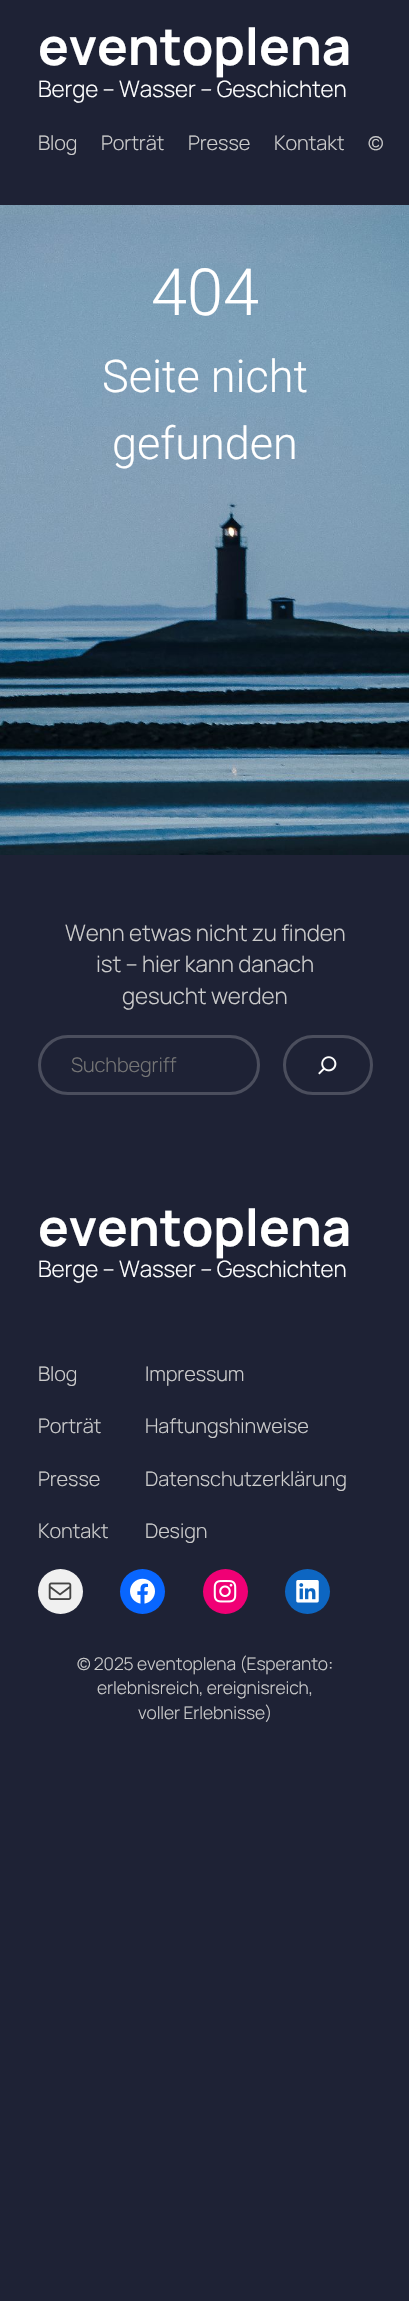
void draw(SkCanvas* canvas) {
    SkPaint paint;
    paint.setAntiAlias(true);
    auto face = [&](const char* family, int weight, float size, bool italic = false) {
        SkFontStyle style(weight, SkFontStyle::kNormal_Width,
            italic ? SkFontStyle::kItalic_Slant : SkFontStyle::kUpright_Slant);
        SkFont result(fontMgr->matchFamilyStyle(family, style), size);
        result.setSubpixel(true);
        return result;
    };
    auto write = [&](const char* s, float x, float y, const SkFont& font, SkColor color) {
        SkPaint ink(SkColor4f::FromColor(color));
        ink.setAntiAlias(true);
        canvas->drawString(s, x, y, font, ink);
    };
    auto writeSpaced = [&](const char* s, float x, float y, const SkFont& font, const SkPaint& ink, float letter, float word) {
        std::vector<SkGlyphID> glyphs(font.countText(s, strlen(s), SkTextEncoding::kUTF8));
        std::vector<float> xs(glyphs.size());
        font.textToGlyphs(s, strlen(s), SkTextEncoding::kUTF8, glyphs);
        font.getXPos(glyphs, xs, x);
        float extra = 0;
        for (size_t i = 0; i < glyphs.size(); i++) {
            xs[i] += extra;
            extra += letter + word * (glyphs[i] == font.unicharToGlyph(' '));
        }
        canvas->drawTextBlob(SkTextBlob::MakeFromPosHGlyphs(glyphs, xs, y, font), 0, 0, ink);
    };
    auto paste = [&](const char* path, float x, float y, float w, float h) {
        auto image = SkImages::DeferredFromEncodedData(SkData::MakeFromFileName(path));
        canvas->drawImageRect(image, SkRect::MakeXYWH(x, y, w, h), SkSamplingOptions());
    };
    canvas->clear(SkColorSetRGB(30, 34, 53));
    auto kFont1 = face("Manrope", 700, 51.25f);
    paint.setColor(SK_ColorWHITE);
    writeSpaced("eventoplena", 38, 65, kFont1, paint, -0.1f, 0);
    auto kFont2 = face("Manrope", 300, 22.5f);
    writeSpaced("Berge – Wasser – Geschichten", 38, 97, kFont2, paint, -0.1f, 0);
    auto kFont3 = face("Manrope", 300, 20);
    paint.setColor(SkColorSetRGB(203, 203, 203));
    writeSpaced("Blog", 38, 150, kFont3, paint, -0.1f, 0);
    writeSpaced("Porträt", 101, 150, kFont3, paint, -0.1f, 0);
    writeSpaced("Presse", 188, 150, kFont3, paint, -0.1f, 0);
    writeSpaced("Kontakt", 274, 150, kFont3, paint, -0.1f, 0);
    writeSpaced("©", 368, 150, kFont3, paint, -0.1f, 0);
    paste("pic1.png", 0, 205, 409, 650);
    auto kFont4 = face("Roboto", 300, 65);
    write("404", 151, 315, kFont4, SK_ColorWHITE);
    auto kFont5 = face("Roboto", 300, 45);
    write("Seite nicht", 102, 392, kFont5, SK_ColorWHITE);
    write("gefunden", 112, 459, kFont5, SK_ColorWHITE);
    writeSpaced("Wenn etwas nicht zu finden", 65, 941, kFont2, paint, -0.1f, 0);
    writeSpaced("ist – hier kann danach", 96, 972, kFont2, paint, -0.1f, 0);
    writeSpaced("gesucht werden", 122, 1004, kFont2, paint, -0.1f, 0);
    paint.setStyle(SkPaint::kStroke_Style);
    paint.setStrokeWidth(3);
    paint.setColor(SkColorSetRGB(75, 78, 93));
    canvas->drawRoundRect(SkRect::MakeXYWH(39.5f, 1036.5f, 219, 57), 28.5f, 28.5f, paint);
    paint.setStyle(SkPaint::kFill_Style);
    paint.setColor(SkColorSetRGB(117, 117, 117));
    writeSpaced("Suchbegriff", 71, 1072, kFont3, paint, -0.1f, 0);
    paint.setStyle(SkPaint::kStroke_Style);
    paint.setColor(SkColorSetRGB(75, 78, 93));
    canvas->drawRoundRect(SkRect::MakeXYWH(284.5f, 1036.5f, 87, 57), 28.5f, 28.5f, paint);
    paste("pic2.png", 318, 1056, 19, 19);
    paint.setStyle(SkPaint::kFill_Style);
    paint.setColor(SK_ColorWHITE);
    writeSpaced("eventoplena", 38, 1246, kFont1, paint, -0.1f, 0);
    writeSpaced("Berge – Wasser – Geschichten", 38, 1277, kFont2, paint, -0.1f, 0);
    paint.setColor(SkColorSetRGB(203, 203, 203));
    writeSpaced("Blog", 38, 1381, kFont3, paint, -0.1f, 0);
    writeSpaced("Porträt", 38, 1433, kFont3, paint, -0.1f, 0);
    writeSpaced("Presse", 38, 1486, kFont3, paint, -0.1f, 0);
    writeSpaced("Kontakt", 38, 1538, kFont3, paint, -0.1f, 0);
    writeSpaced("Impressum", 145, 1381, kFont3, paint, -0.1f, 0);
    writeSpaced("Haftungshinweise", 145, 1433, kFont3, paint, -0.1f, 0);
    writeSpaced("Datenschutzerklärung", 145, 1486, kFont3, paint, -0.1f, 0);
    writeSpaced("Design", 145, 1538, kFont3, paint, -0.1f, 0);
    paint.setColor(SkColorSetRGB(240, 240, 240));
    canvas->drawCircle(60.5f, 1591.5f, 22.5f, paint);
    paste("pic3.png", 48, 1582, 24, 18);
    paint.setColor(SkColorSetRGB(8, 102, 255));
    canvas->drawCircle(142.5f, 1591.5f, 22.5f, paint);
    paste("pic4.png", 130, 1578, 25, 26);
    paint.setColor(SkColorSetRGB(240, 0, 117));
    canvas->drawCircle(225.5f, 1591.5f, 22.5f, paint);
    paste("pic5.png", 213, 1580, 24, 23);
    paint.setColor(SkColorSetRGB(13, 102, 194));
    canvas->drawCircle(307.5f, 1591.5f, 22.5f, paint);
    paste("pic6.png", 296, 1580, 23, 23);
    auto kFont6 = face("Manrope", 300, 17.5f);
    paint.setColor(SkColorSetRGB(203, 203, 203));
    writeSpaced("© 2025 eventoplena (Esperanto", 77, 1670, kFont6, paint, -0.1f, 0);
    auto kFont7 = face("Manrope", 400, 17.5f);
    writeSpaced(":", 328, 1670, kFont7, paint, -0.1f, 0);
    writeSpaced("erlebnisreich, ereignisreich,", 97, 1694, kFont6, paint, -0.1f, 0);
    writeSpaced("voller Erlebnisse)", 138, 1719, kFont6, paint, -0.1f, 0);
}
